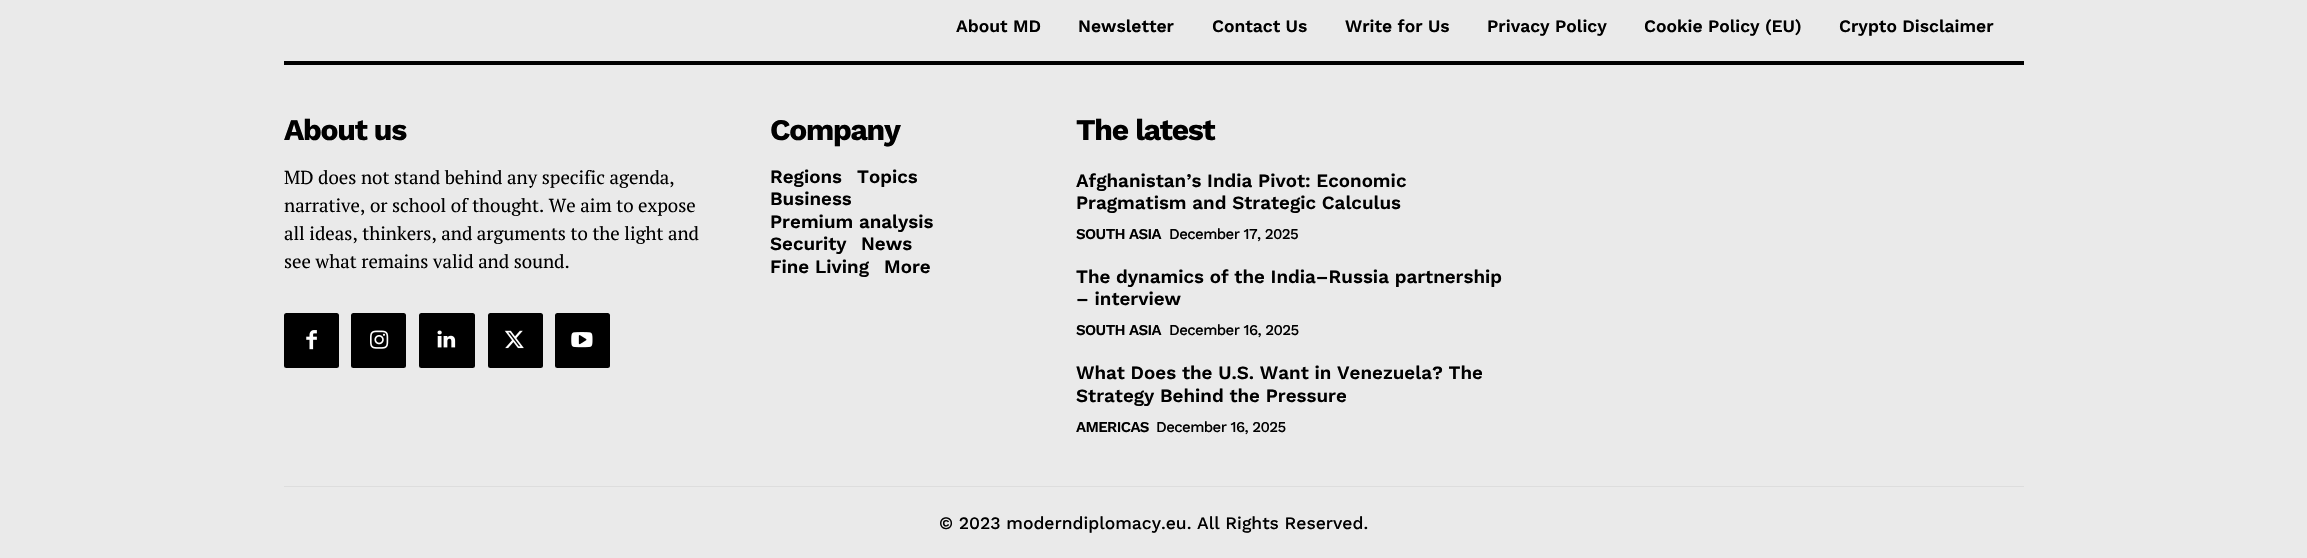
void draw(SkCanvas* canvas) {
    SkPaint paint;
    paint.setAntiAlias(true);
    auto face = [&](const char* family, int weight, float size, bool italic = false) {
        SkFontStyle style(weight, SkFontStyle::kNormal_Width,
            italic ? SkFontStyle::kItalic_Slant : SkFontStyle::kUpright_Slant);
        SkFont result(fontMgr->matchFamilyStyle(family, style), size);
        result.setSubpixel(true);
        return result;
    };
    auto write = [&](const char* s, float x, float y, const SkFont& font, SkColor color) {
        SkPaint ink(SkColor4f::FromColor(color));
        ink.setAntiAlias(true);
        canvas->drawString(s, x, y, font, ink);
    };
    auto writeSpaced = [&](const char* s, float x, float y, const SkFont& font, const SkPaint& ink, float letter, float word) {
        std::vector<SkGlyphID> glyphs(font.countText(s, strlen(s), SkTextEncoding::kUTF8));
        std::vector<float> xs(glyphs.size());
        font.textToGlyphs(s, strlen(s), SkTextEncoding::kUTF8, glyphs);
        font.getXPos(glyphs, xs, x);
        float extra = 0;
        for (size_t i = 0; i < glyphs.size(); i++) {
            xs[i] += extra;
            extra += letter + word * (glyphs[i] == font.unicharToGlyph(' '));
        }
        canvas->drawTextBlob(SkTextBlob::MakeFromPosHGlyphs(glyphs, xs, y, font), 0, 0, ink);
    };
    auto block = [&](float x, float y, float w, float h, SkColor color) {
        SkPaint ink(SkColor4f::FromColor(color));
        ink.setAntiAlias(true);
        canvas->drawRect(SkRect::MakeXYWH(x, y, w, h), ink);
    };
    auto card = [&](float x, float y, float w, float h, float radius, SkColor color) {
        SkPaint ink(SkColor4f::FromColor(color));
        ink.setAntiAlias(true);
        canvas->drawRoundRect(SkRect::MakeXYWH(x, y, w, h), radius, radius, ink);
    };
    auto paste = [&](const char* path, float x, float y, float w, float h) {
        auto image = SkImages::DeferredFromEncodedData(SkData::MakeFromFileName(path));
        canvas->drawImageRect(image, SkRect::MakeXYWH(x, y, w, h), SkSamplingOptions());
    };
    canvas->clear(SkColorSetRGB(234, 234, 234));
    block(284, 61, 1740, 4, SK_ColorBLACK);
    auto kFont1 = face("Work Sans", 600, 17.5f);
    write("About MD", 956, 32, kFont1, SK_ColorBLACK);
    write("Newsletter", 1078, 32, kFont1, SK_ColorBLACK);
    write("Contact Us", 1212, 32, kFont1, SK_ColorBLACK);
    write("Write for Us", 1345, 32, kFont1, SK_ColorBLACK);
    write("Privacy Policy", 1487, 32, kFont1, SK_ColorBLACK);
    write("Cookie Policy (EU)", 1644, 32, kFont1, SK_ColorBLACK);
    write("Crypto Disclaimer", 1839, 32, kFont1, SK_ColorBLACK);
    auto kFont2 = face("Work Sans", 700, 30);
    paint.setColor(SK_ColorBLACK);
    writeSpaced("About us", 284, 140, kFont2, paint, -1.25f, 0);
    auto kFont3 = face("PT Serif", 400, 18.75f);
    write("MD does not stand behind any specific agenda,", 284, 184, kFont3, SK_ColorBLACK);
    write("narrative, or school of thought. We aim to expose", 284, 212, kFont3, SK_ColorBLACK);
    write("all ideas, thinkers, and arguments to the light and", 284, 240, kFont3, SK_ColorBLACK);
    write("see what remains valid and sound.", 284, 268, kFont3, SK_ColorBLACK);
    card(284, 313, 55, 55, 2.5f, SK_ColorBLACK);
    paste("pic1.png", 306, 330, 11, 20);
    card(351, 313, 55, 55, 2.5f, SK_ColorBLACK);
    paste("pic2.png", 370, 330, 19, 19);
    card(419, 313, 56, 55, 2.5f, SK_ColorBLACK);
    paste("pic3.png", 437, 330, 19, 18);
    card(488, 313, 55, 55, 2.5f, SK_ColorBLACK);
    paste("pic4.png", 504, 330, 20, 19);
    card(555, 313, 55, 55, 2.5f, SK_ColorBLACK);
    paste("pic5.png", 571, 332, 22, 16);
    writeSpaced("Company", 770, 140, kFont2, paint, -1.25f, 0);
    auto kFont4 = face("Work Sans", 600, 18.75f);
    write("Regions", 770, 183, kFont4, SK_ColorBLACK);
    write("Topics", 857, 183, kFont4, SK_ColorBLACK);
    write("Business", 770, 205, kFont4, SK_ColorBLACK);
    write("Premium analysis", 770, 228, kFont4, SK_ColorBLACK);
    write("Security", 770, 250, kFont4, SK_ColorBLACK);
    write("News", 861, 250, kFont4, SK_ColorBLACK);
    write("Fine Living", 770, 273, kFont4, SK_ColorBLACK);
    write("More", 884, 273, kFont4, SK_ColorBLACK);
    writeSpaced("The latest", 1076, 140, kFont2, paint, -1.25f, 0);
    write("Afghanistan’s India Pivot: Economic", 1076, 187, kFont4, SK_ColorBLACK);
    write("Pragmatism and Strategic Calculus", 1076, 209, kFont4, SK_ColorBLACK);
    auto kFont5 = face("Work Sans", 600, 15);
    writeSpaced("SOUTH ASIA", 1076, 239, kFont5, paint, -0.6f, 0);
    auto kFont6 = face("Work Sans", 500, 15);
    writeSpaced("December 17, 2025", 1169, 239, kFont6, paint, -0.6f, 0);
    write("The dynamics of the India–Russia partnership", 1076, 283, kFont4, SK_ColorBLACK);
    write("– interview", 1076, 305, kFont4, SK_ColorBLACK);
    writeSpaced("SOUTH ASIA", 1076, 335, kFont5, paint, -0.6f, 0);
    writeSpaced("December 16, 2025", 1169, 335, kFont6, paint, -0.6f, 0);
    write("What Does the U.S. Want in Venezuela? The", 1076, 379, kFont4, SK_ColorBLACK);
    write("Strategy Behind the Pressure", 1076, 402, kFont4, SK_ColorBLACK);
    writeSpaced("AMERICAS", 1076, 432, kFont5, paint, -0.6f, 0);
    writeSpaced("December 16, 2025", 1156, 432, kFont6, paint, -0.6f, 0);
    block(284, 486, 1740, 1, SkColorSetRGB(221, 221, 221));
    auto kFont7 = face("Work Sans", 500, 17.5f);
    write("© 2023 moderndiplomacy.eu. All Rights Reserved.", 939, 529, kFont7, SK_ColorBLACK);
}
